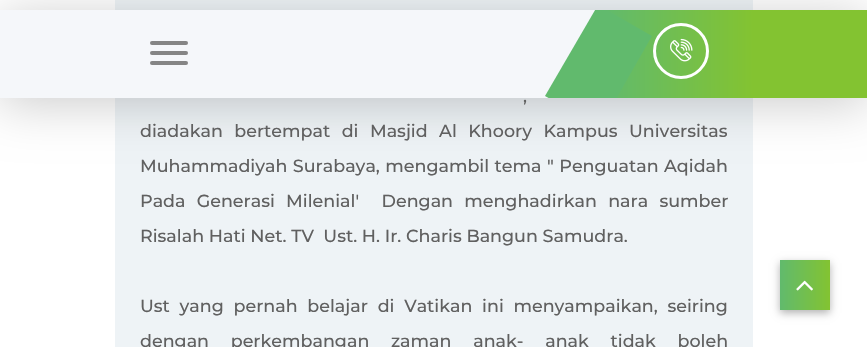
void draw(SkCanvas* canvas) {
    SkPaint paint;
    paint.setAntiAlias(true);
    auto face = [&](const char* family, int weight, float size, bool italic = false) {
        SkFontStyle style(weight, SkFontStyle::kNormal_Width,
            italic ? SkFontStyle::kItalic_Slant : SkFontStyle::kUpright_Slant);
        SkFont result(fontMgr->matchFamilyStyle(family, style), size);
        result.setSubpixel(true);
        return result;
    };
    auto write = [&](const char* s, float x, float y, const SkFont& font, SkColor color) {
        SkPaint ink(SkColor4f::FromColor(color));
        ink.setAntiAlias(true);
        canvas->drawString(s, x, y, font, ink);
    };
    auto writeSpaced = [&](const char* s, float x, float y, const SkFont& font, const SkPaint& ink, float letter, float word) {
        std::vector<SkGlyphID> glyphs(font.countText(s, strlen(s), SkTextEncoding::kUTF8));
        std::vector<float> xs(glyphs.size());
        font.textToGlyphs(s, strlen(s), SkTextEncoding::kUTF8, glyphs);
        font.getXPos(glyphs, xs, x);
        float extra = 0;
        for (size_t i = 0; i < glyphs.size(); i++) {
            xs[i] += extra;
            extra += letter + word * (glyphs[i] == font.unicharToGlyph(' '));
        }
        canvas->drawTextBlob(SkTextBlob::MakeFromPosHGlyphs(glyphs, xs, y, font), 0, 0, ink);
    };
    auto block = [&](float x, float y, float w, float h, SkColor color) {
        SkPaint ink(SkColor4f::FromColor(color));
        ink.setAntiAlias(true);
        canvas->drawRect(SkRect::MakeXYWH(x, y, w, h), ink);
    };
    auto card = [&](float x, float y, float w, float h, float radius, SkColor color) {
        SkPaint ink(SkColor4f::FromColor(color));
        ink.setAntiAlias(true);
        canvas->drawRoundRect(SkRect::MakeXYWH(x, y, w, h), radius, radius, ink);
    };
    auto paste = [&](const char* path, float x, float y, float w, float h) {
        auto image = SkImages::DeferredFromEncodedData(SkData::MakeFromFileName(path));
        canvas->drawImageRect(image, SkRect::MakeXYWH(x, y, w, h), SkSamplingOptions());
    };
    canvas->clear(SK_ColorWHITE);
    block(115, 0, 638, 347, SkColorSetRGB(238, 243, 246));
    paint.setColor(SkColorSetARGB(51, 0, 0, 0));
    paint.setMaskFilter(SkMaskFilter::MakeBlur(kNormal_SkBlurStyle, 25));
    canvas->drawRect(SkRect::MakeXYWH(0, 16, 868, 88), paint);
    paint.setMaskFilter(nullptr);
    block(0, 10, 596, 88, SkColorSetRGB(245, 247, 250));
    card(150, 41, 38, 4, 2, SkColorSetRGB(133, 133, 133));
    card(150, 51, 38, 4, 2, SkColorSetRGB(133, 133, 133));
    card(150, 61, 38, 4, 2, SkColorSetRGB(133, 133, 133));
    {
        const SkColor colors[] = {SkColorSetRGB(97, 186, 109), SkColorSetRGB(131, 195, 49)};
        const float stops[] = {0, 1};
        const SkPoint ends[] = {{603, 54}, {753, 54}};
        paint.setShader(SkGradientShader::MakeLinear(ends, colors, stops, 2, SkTileMode::kClamp));
        paint.setAlpha(255);
    }
    canvas->drawRect(SkRect::MakeXYWH(606, 10, 147, 88), paint);
    canvas->save();
    canvas->clipRect(SkRect::MakeXYWH(540, 10, 213, 88));
    paint.setShader(nullptr);
    paint.setColor(SkColorSetRGB(97, 186, 109));
    canvas->drawPath(SkPathBuilder().moveTo(598, 5).lineTo(652, 36).lineTo(600, 127).lineTo(545, 96).close().detach(), paint);
    canvas->restore();
    paint.setStyle(SkPaint::kStroke_Style);
    paint.setStrokeWidth(3);
    paint.setColor(SK_ColorWHITE);
    canvas->drawCircle(681, 51, 26.5f, paint);
    paste("pic1.png", 670, 38, 23, 24);
    block(753, 10, 114, 88, SkColorSetRGB(131, 195, 49));
    auto kFont1 = face("Montserrat", 500, 17.5f);
    paint.setStyle(SkPaint::kFill_Style);
    paint.setColor(SkColorSetRGB(96, 96, 96));
    writeSpaced(",", 523, 102, kFont1, paint, 0, 5);
    writeSpaced("diadakan bertempat di Masjid Al Khoory Kampus Universitas", 140, 137, kFont1, paint, 0, 6.75f);
    writeSpaced("Muhammadiyah Surabaya, mengambil tema \" Penguatan Aqidah", 140, 172, kFont1, paint, 0, 0.75f);
    writeSpaced("Pada Generasi Milenial'  Dengan menghadirkan nara sumber", 140, 207, kFont1, paint, 0, 6.5f);
    write("Risalah Hati Net. TV  Ust. H. Ir. Charis Bangun Samudra.", 140, 242, kFont1, SkColorSetRGB(96, 96, 96));
    writeSpaced("Ust yang pernah belajar di Vatikan ini menyampaikan, seiring", 140, 312, kFont1, paint, 0, 5);
    writeSpaced("dengan perkembangan zaman anak- anak tidak boleh", 140, 347, kFont1, paint, 0, 17);
    paint.setColor(SkColorSetARGB(77, 0, 0, 0));
    paint.setMaskFilter(SkMaskFilter::MakeBlur(kNormal_SkBlurStyle, 4));
    canvas->drawRect(SkRect::MakeXYWH(780, 263, 50, 50), paint);
    paint.setMaskFilter(nullptr);
    {
        const SkColor colors[] = {SkColorSetRGB(97, 186, 109), SkColorSetRGB(131, 195, 49)};
        const float stops[] = {0, 1};
        const SkPoint ends[] = {{780, 285}, {830, 285}};
        paint.setShader(SkGradientShader::MakeLinear(ends, colors, stops, 2, SkTileMode::kClamp));
        paint.setAlpha(255);
    }
    canvas->drawRect(SkRect::MakeXYWH(780, 260, 50, 50), paint);
    paste("pic2.png", 796, 280, 17, 11);
}
